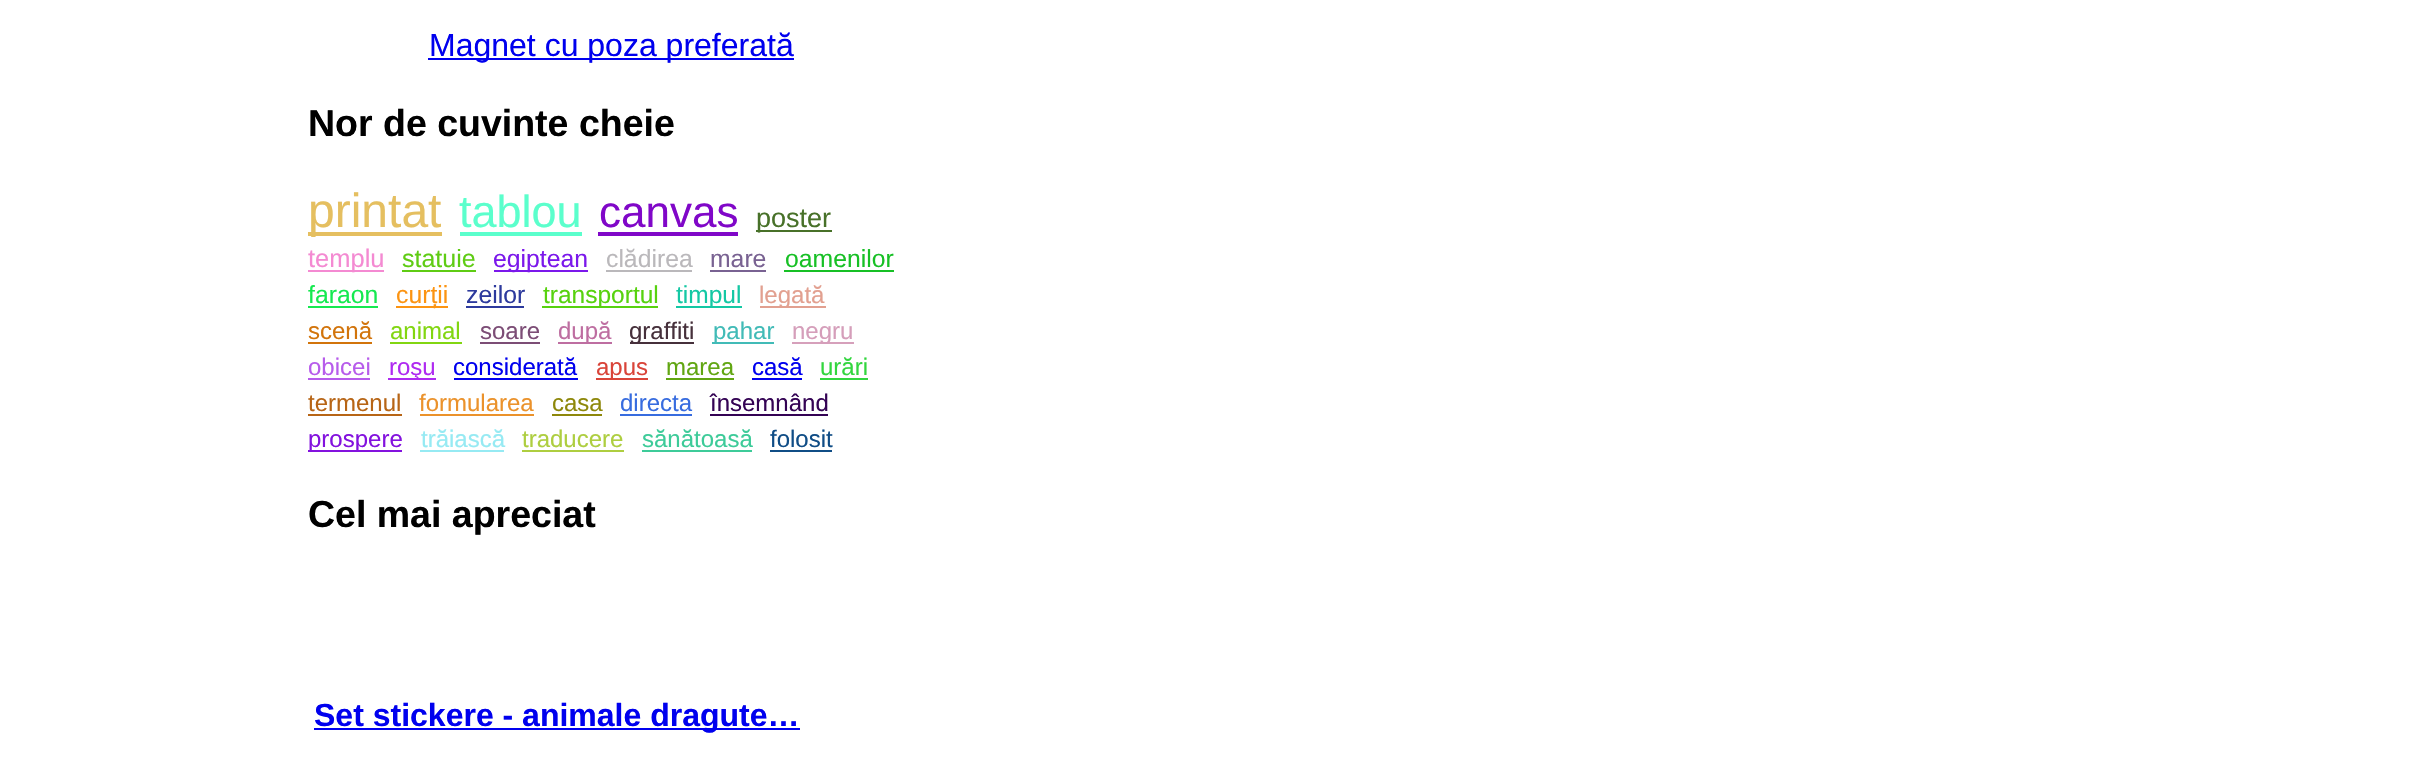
void draw(SkCanvas* canvas) {
    SkPaint paint;
    paint.setAntiAlias(true);
    auto face = [&](const char* family, int weight, float size, bool italic = false) {
        SkFontStyle style(weight, SkFontStyle::kNormal_Width,
            italic ? SkFontStyle::kItalic_Slant : SkFontStyle::kUpright_Slant);
        SkFont result(fontMgr->matchFamilyStyle(family, style), size);
        result.setSubpixel(true);
        return result;
    };
    auto write = [&](const char* s, float x, float y, const SkFont& font, SkColor color) {
        SkPaint ink(SkColor4f::FromColor(color));
        ink.setAntiAlias(true);
        canvas->drawString(s, x, y, font, ink);
    };
    auto block = [&](float x, float y, float w, float h, SkColor color) {
        SkPaint ink(SkColor4f::FromColor(color));
        ink.setAntiAlias(true);
        canvas->drawRect(SkRect::MakeXYWH(x, y, w, h), ink);
    };
    canvas->clear(SK_ColorWHITE);
    block(428, 58, 366, 2, SkColorSetRGB(0, 0, 238));
    auto kFont1 = face("Liberation Sans", 400, 32);
    write("Magnet cu poza preferată", 429, 56, kFont1, SkColorSetRGB(0, 0, 238));
    auto kFont2 = face("Liberation Sans", 700, 37.5f);
    write("Nor de cuvinte cheie", 308, 136, kFont2, SK_ColorBLACK);
    block(308, 232, 134, 4, SkColorSetRGB(229, 191, 96));
    auto kFont3 = face("Liberation Sans", 400, 48);
    write("printat", 308, 227, kFont3, SkColorSetRGB(229, 191, 96));
    auto kFont4 = face("Liberation Sans", 400, 45);
    write("tablou", 459, 227, kFont4, SkColorSetRGB(91, 255, 204));
    block(460, 232, 122, 4, SkColorSetRGB(91, 255, 204));
    auto kFont5 = face("Liberation Sans", 400, 44);
    write("canvas", 599, 227, kFont5, SkColorSetRGB(128, 7, 200));
    block(598, 232, 140, 4, SkColorSetRGB(128, 7, 200));
    block(756, 230, 76, 2, SkColorSetRGB(72, 113, 41));
    auto kFont6 = face("Liberation Sans", 400, 27);
    write("poster", 756, 227, kFont6, SkColorSetRGB(72, 113, 41));
    block(308, 270, 76, 2, SkColorSetRGB(244, 138, 210));
    auto kFont7 = face("Liberation Sans", 400, 25.5f);
    write("templu", 308, 267, kFont7, SkColorSetRGB(244, 138, 210));
    auto kFont8 = face("Liberation Sans", 400, 25);
    write("statuie", 402, 267, kFont8, SkColorSetRGB(95, 204, 20));
    block(402, 270, 74, 2, SkColorSetRGB(95, 204, 20));
    block(494, 270, 94, 2, SkColorSetRGB(123, 24, 235));
    auto kFont9 = face("Liberation Sans", 400, 24.75f);
    write("egiptean", 493, 267, kFont9, SkColorSetRGB(123, 24, 235));
    write("clădirea", 606, 267, kFont9, SkColorSetRGB(186, 184, 187));
    block(606, 270, 86, 2, SkColorSetRGB(186, 184, 187));
    write("mare", 710, 267, kFont9, SkColorSetRGB(121, 98, 146));
    block(710, 270, 56, 2, SkColorSetRGB(121, 98, 146));
    write("oamenilor", 785, 267, kFont9, SkColorSetRGB(23, 192, 37));
    block(784, 270, 110, 2, SkColorSetRGB(23, 192, 37));
    write("faraon", 308, 303, kFont9, SkColorSetRGB(21, 233, 80));
    block(308, 306, 70, 2, SkColorSetRGB(21, 233, 80));
    block(396, 306, 52, 2, SkColorSetRGB(252, 148, 18));
    write("curții", 396, 303, kFont9, SkColorSetRGB(252, 148, 18));
    write("zeilor", 466, 303, kFont9, SkColorSetRGB(45, 58, 157));
    block(466, 306, 58, 2, SkColorSetRGB(45, 58, 157));
    block(542, 306, 116, 2, SkColorSetRGB(87, 210, 15));
    auto kFont10 = face("Liberation Sans", 400, 24.5f);
    write("transportul", 543, 303, kFont10, SkColorSetRGB(87, 210, 15));
    block(676, 306, 66, 2, SkColorSetRGB(20, 200, 164));
    write("timpul", 676, 303, kFont10, SkColorSetRGB(20, 200, 164));
    block(760, 306, 66, 2, SkColorSetRGB(226, 160, 144));
    auto kFont11 = face("Liberation Sans", 400, 24);
    write("legată", 759, 303, kFont11, SkColorSetRGB(226, 160, 144));
    write("scenă", 308, 339, kFont11, SkColorSetRGB(210, 116, 11));
    block(308, 342, 64, 2, SkColorSetRGB(210, 116, 11));
    write("animal", 390, 339, kFont11, SkColorSetRGB(130, 214, 17));
    block(390, 342, 72, 2, SkColorSetRGB(130, 214, 17));
    write("soare", 480, 339, kFont11, SkColorSetRGB(124, 77, 118));
    block(480, 342, 60, 2, SkColorSetRGB(124, 77, 118));
    block(558, 342, 54, 2, SkColorSetRGB(190, 110, 161));
    write("după", 558, 339, kFont11, SkColorSetRGB(190, 110, 161));
    block(630, 342, 64, 2, SkColorSetRGB(70, 48, 59));
    write("graffiti", 629, 339, kFont11, SkColorSetRGB(70, 48, 59));
    block(712, 342, 62, 2, SkColorSetRGB(65, 187, 183));
    write("pahar", 713, 339, kFont11, SkColorSetRGB(65, 187, 183));
    block(792, 342, 62, 2, SkColorSetRGB(214, 160, 187));
    write("negru", 792, 339, kFont11, SkColorSetRGB(213, 158, 186));
    write("obicei", 308, 375, kFont11, SkColorSetRGB(183, 92, 235));
    block(308, 378, 62, 2, SkColorSetRGB(183, 92, 235));
    block(388, 378, 48, 2, SkColorSetRGB(175, 42, 241));
    write("roşu", 389, 375, kFont11, SkColorSetRGB(175, 42, 241));
    write("considerată", 453, 375, kFont11, SkColorSetRGB(0, 0, 238));
    block(454, 378, 124, 2, SkColorSetRGB(0, 0, 238));
    block(596, 378, 52, 2, SkColorSetRGB(217, 68, 57));
    write("apus", 596, 375, kFont11, SkColorSetRGB(217, 68, 57));
    write("marea", 666, 375, kFont11, SkColorSetRGB(97, 166, 18));
    block(666, 378, 68, 2, SkColorSetRGB(97, 166, 18));
    write("casă", 752, 375, kFont11, SkColorSetRGB(0, 0, 238));
    block(752, 378, 50, 2, SkColorSetRGB(0, 0, 238));
    write("urări", 820, 375, kFont11, SkColorSetRGB(50, 214, 62));
    block(820, 378, 48, 2, SkColorSetRGB(50, 214, 62));
    write("termenul", 308, 411, kFont11, SkColorSetRGB(183, 101, 22));
    block(308, 414, 94, 2, SkColorSetRGB(183, 101, 22));
    write("formularea", 419, 411, kFont11, SkColorSetRGB(235, 146, 43));
    block(420, 414, 114, 2, SkColorSetRGB(235, 146, 43));
    write("casa", 552, 411, kFont11, SkColorSetRGB(142, 136, 11));
    block(552, 414, 50, 2, SkColorSetRGB(142, 136, 11));
    write("directa", 620, 411, kFont11, SkColorSetRGB(55, 108, 223));
    block(620, 414, 72, 2, SkColorSetRGB(55, 108, 223));
    write("însemnând", 710, 411, kFont11, SkColorSetRGB(52, 3, 84));
    block(710, 414, 118, 2, SkColorSetRGB(52, 3, 84));
    block(308, 450, 94, 2, SkColorSetRGB(131, 18, 222));
    write("prospere", 308, 447, kFont11, SkColorSetRGB(131, 18, 222));
    write("trăiască", 421, 447, kFont11, SkColorSetRGB(150, 234, 243));
    block(420, 450, 84, 2, SkColorSetRGB(150, 234, 243));
    write("traducere", 522, 447, kFont11, SkColorSetRGB(174, 206, 64));
    block(522, 450, 102, 2, SkColorSetRGB(174, 206, 64));
    write("sănătoasă", 642, 447, kFont11, SkColorSetRGB(61, 203, 153));
    block(642, 450, 110, 2, SkColorSetRGB(61, 203, 153));
    write("folosit", 770, 447, kFont11, SkColorSetRGB(16, 77, 134));
    block(770, 450, 62, 2, SkColorSetRGB(16, 77, 134));
    write("Cel mai apreciat", 308, 527, kFont2, SK_ColorBLACK);
    block(314, 728, 486, 2, SkColorSetRGB(0, 0, 238));
    auto kFont12 = face("Liberation Sans", 700, 32);
    write("Set stickere - animale dragute…", 314, 726, kFont12, SkColorSetRGB(0, 0, 238));
}
